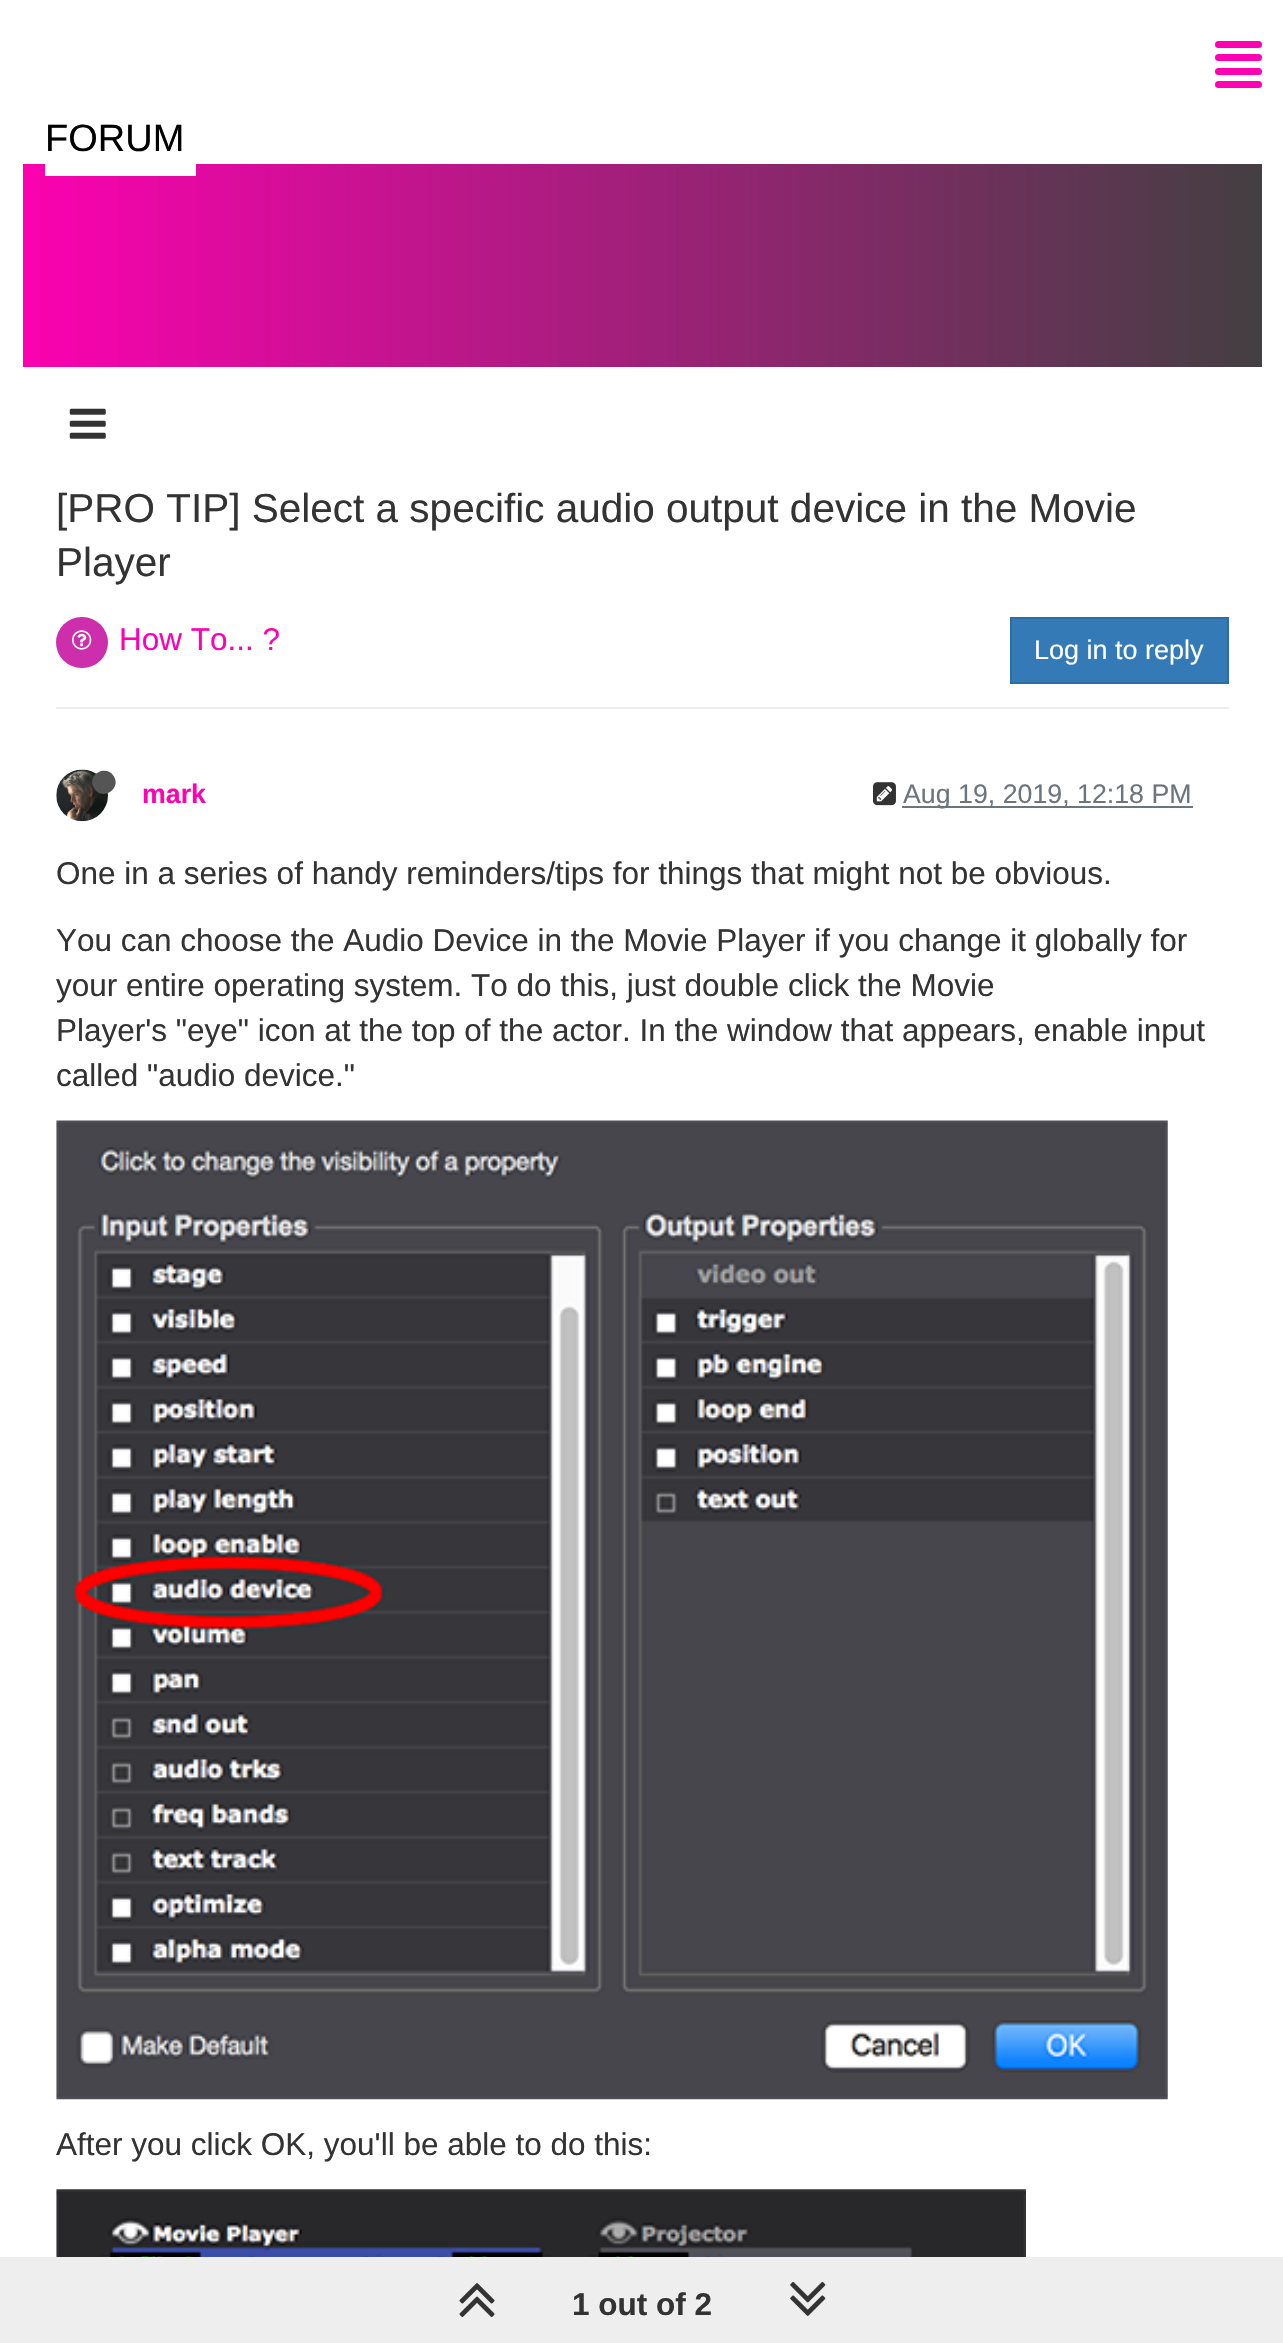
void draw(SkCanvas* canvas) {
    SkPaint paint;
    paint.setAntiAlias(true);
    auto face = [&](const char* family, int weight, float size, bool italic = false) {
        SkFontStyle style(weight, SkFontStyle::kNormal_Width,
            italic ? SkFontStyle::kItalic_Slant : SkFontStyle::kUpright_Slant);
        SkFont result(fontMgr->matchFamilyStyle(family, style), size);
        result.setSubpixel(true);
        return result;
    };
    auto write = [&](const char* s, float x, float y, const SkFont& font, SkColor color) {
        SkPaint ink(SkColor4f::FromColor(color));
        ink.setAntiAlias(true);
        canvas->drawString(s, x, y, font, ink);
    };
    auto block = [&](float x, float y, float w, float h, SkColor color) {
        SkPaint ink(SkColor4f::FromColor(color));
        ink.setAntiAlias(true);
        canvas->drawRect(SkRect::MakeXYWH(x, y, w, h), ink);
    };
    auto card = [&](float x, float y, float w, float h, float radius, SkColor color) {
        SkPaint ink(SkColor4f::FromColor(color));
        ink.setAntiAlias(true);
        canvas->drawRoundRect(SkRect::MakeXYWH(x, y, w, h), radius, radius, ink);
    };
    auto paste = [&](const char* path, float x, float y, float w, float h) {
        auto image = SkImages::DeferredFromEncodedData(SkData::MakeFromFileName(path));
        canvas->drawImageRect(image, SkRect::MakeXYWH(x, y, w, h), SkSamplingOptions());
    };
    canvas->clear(SK_ColorWHITE);
    {
        const SkColor colors[] = {SkColorSetRGB(255, 0, 178), SkColorSetRGB(64, 64, 64)};
        const float stops[] = {0, 1};
        const SkPoint ends[] = {{0, 1172}, {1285, 1172}};
        paint.setShader(SkGradientShader::MakeLinear(ends, colors, stops, 2, SkTileMode::kClamp));
        paint.setAlpha(255);
    }
    canvas->drawRect(SkRect::MakeXYWH(23, 164, 1239, 203), paint);
    card(1215, 41, 47, 7, 3.5f, SkColorSetRGB(255, 0, 178));
    card(1215, 54, 47, 7, 3.5f, SkColorSetRGB(255, 0, 178));
    card(1215, 68, 47, 7, 3.5f, SkColorSetRGB(255, 0, 178));
    card(1215, 81, 47, 7, 3.5f, SkColorSetRGB(255, 0, 178));
    block(45, 164, 151, 12, SK_ColorWHITE);
    auto kFont1 = face("Liberation Sans", 400, 38);
    write("FORUM", 45, 151, kFont1, SK_ColorBLACK);
    paste("pic1.png", 69, 408, 37, 31);
    auto kFont2 = face("Liberation Sans", 400, 40.5f);
    write("[PRO TIP] Select a specific audio output device in the Movie", 56, 522, kFont2, SkColorSetRGB(51, 51, 51));
    write("Player", 56, 576, kFont2, SkColorSetRGB(51, 51, 51));
    block(56, 707, 1173, 2, SkColorSetRGB(238, 238, 238));
    card(56, 617, 52, 51, 25.5f, SkColorSetRGB(205, 47, 172));
    paste("pic2.png", 72, 630, 20, 20);
    auto kFont3 = face("Liberation Sans", 400, 31.5f);
    write("How To... ?", 119, 650, kFont3, SkColorSetRGB(255, 0, 178));
    paint.setShader(nullptr);
    paint.setColor(SkColorSetRGB(51, 122, 183));
    canvas->drawRect(SkRect::MakeXYWH(1011, 618, 217, 65), paint);
    paint.setStyle(SkPaint::kStroke_Style);
    paint.setStrokeWidth(2);
    paint.setColor(SkColorSetRGB(46, 109, 164));
    canvas->drawRect(SkRect::MakeXYWH(1011, 618, 217, 65), paint);
    auto kFont4 = face("Liberation Sans", 400, 27);
    write("Log in to reply", 1034, 659, kFont4, SK_ColorWHITE);
    paste("pic3.png", 56, 769, 52, 53);
    paint.setStyle(SkPaint::kFill_Style);
    paint.setColor(SkColorSetRGB(85, 85, 85));
    canvas->drawPath(SkPathBuilder().moveTo(114, 776.5f).cubicTo(121.5f, 789.5f, 101.5f, 801.5f, 94, 788).cubicTo(86, 775, 106, 763.5f, 114, 776.5f).close().detach(), paint);
    auto kFont5 = face("Liberation Sans", 700, 26.75f);
    write("mark", 142, 803, kFont5, SkColorSetRGB(255, 0, 178));
    paste("pic4.png", 873, 782, 23, 24);
    block(902, 806, 291, 2, SkColorSetRGB(108, 117, 125));
    auto kFont6 = face("Liberation Sans", 400, 26.75f);
    write("Aug 19, 2019, 12:18 PM", 903, 803, kFont6, SkColorSetRGB(108, 117, 125));
    write("One in a series of handy reminders/tips for things that might not be obvious.", 56, 884, kFont3, SkColorSetRGB(51, 51, 51));
    write("You can choose the Audio Device in the Movie Player if you change it globally for", 56, 951, kFont3, SkColorSetRGB(51, 51, 51));
    write("your entire operating system. To do this, just double click the Movie", 56, 996, kFont3, SkColorSetRGB(51, 51, 51));
    write("Player's \"eye\" icon at the top of the actor. In the window that appears, enable input", 56, 1041, kFont3, SkColorSetRGB(51, 51, 51));
    write("called \"audio device.\"", 56, 1086, kFont3, SkColorSetRGB(51, 51, 51));
    paste("pic5.png", 56, 1120, 1112, 980);
    write("After you click OK, you'll be able to do this:", 56, 2155, kFont3, SkColorSetRGB(51, 51, 51));
    paste("pic6.png", 56, 2189, 970, 68);
    block(0, 2257, 1283, 86, SkColorSetRGB(238, 238, 238));
    paste("pic7.png", 459, 2283, 36, 34);
    auto kFont7 = face("Liberation Sans", 700, 31.5f);
    write("1 out of 2", 572, 2315, kFont7, SkColorSetRGB(51, 51, 51));
    paste("pic8.png", 790, 2282, 36, 34);
}
